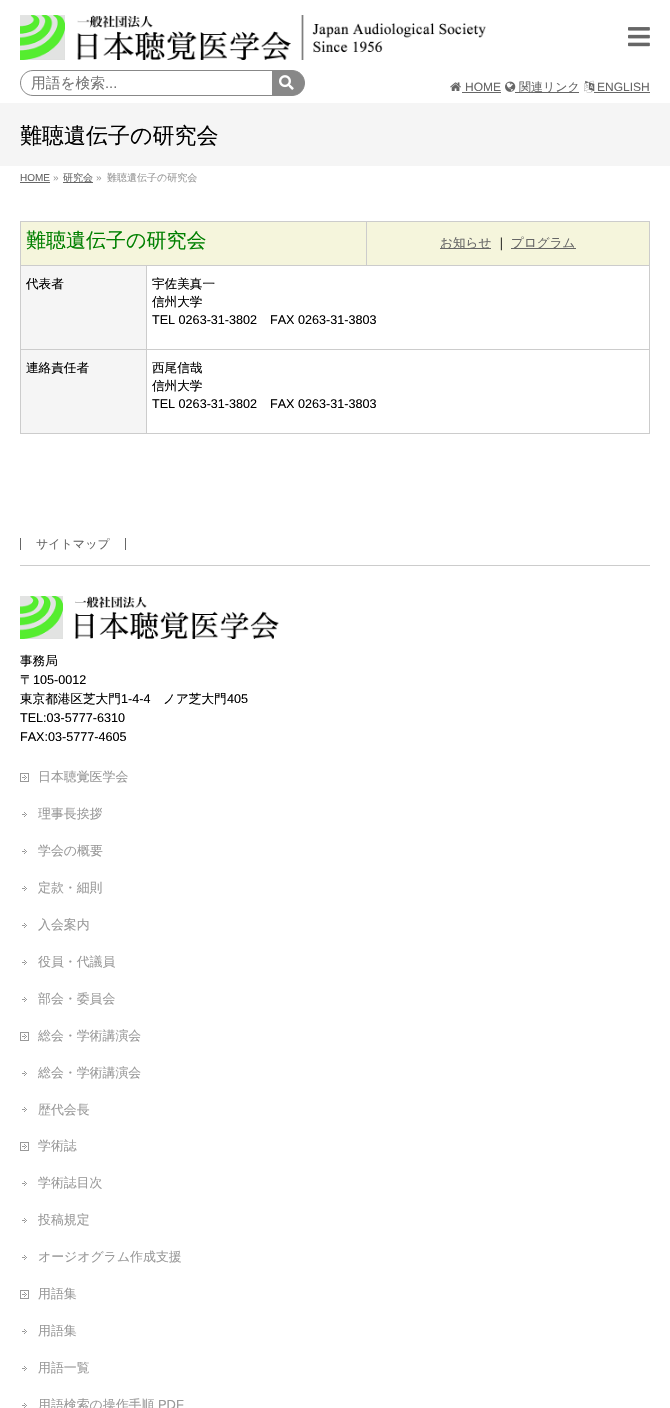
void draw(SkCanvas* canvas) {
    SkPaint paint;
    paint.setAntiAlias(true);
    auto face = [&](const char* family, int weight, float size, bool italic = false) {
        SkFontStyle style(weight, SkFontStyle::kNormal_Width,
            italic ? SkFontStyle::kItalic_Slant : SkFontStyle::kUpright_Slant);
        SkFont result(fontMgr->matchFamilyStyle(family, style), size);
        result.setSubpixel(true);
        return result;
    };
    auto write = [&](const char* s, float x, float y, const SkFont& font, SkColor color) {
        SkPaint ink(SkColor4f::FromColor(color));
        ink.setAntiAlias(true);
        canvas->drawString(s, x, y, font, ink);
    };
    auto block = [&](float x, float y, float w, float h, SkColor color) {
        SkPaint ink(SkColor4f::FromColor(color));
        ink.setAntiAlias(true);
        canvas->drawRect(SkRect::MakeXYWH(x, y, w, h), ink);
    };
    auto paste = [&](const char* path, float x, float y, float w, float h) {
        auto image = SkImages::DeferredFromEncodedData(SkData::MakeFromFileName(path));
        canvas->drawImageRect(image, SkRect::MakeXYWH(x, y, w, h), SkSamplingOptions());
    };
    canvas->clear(SK_ColorWHITE);
    paste("pic1.png", 20, 15, 466, 45);
    paste("pic2.png", 628, 27, 22, 20);
    paint.setStyle(SkPaint::kStroke_Style);
    paint.setStrokeWidth(1);
    paint.setColor(SkColorSetRGB(136, 136, 136));
    canvas->drawPath(SkPathBuilder().moveTo(33, 70.5f).lineTo(282.5f, 70.5f).lineTo(282.5f, 95.5f).lineTo(33, 95.5f).cubicTo(26, 95.5f, 20.5f, 90, 20.5f, 83).cubicTo(20.5f, 76, 26, 70.5f, 33, 70.5f).close().detach(), paint);
    auto kFont1 = face("WenQuanYi Zen Hei", 500, 14.75f);
    write("用語を検索", 31, 88, kFont1, SkColorSetRGB(117, 117, 117));
    auto kFont2 = face("Liberation Sans", 400, 14.75f);
    write("...", 105, 88, kFont2, SkColorSetRGB(117, 117, 117));
    paint.setStyle(SkPaint::kFill_Style);
    canvas->drawPath(SkPathBuilder().moveTo(272.5f, 70.5f).lineTo(292, 70.5f).cubicTo(299, 70.5f, 304.5f, 76, 304.5f, 83).cubicTo(304.5f, 90, 299, 95.5f, 292, 95.5f).lineTo(272.5f, 95.5f).close().detach(), paint);
    paint.setStyle(SkPaint::kStroke_Style);
    canvas->drawPath(SkPathBuilder().moveTo(272.5f, 70.5f).lineTo(292, 70.5f).cubicTo(299, 70.5f, 304.5f, 76, 304.5f, 83).cubicTo(304.5f, 90, 299, 95.5f, 292, 95.5f).lineTo(272.5f, 95.5f).close().detach(), paint);
    paste("pic3.png", 279, 75, 15, 15);
    paste("pic4.png", 450, 82, 11, 9);
    auto kFont3 = face("Liberation Sans", 400, 12);
    write("HOME", 465, 91, kFont3, SkColorSetRGB(102, 102, 102));
    block(462, 92, 39, 1, SkColorSetRGB(102, 102, 102));
    paste("pic5.png", 505, 81, 11, 11);
    block(515, 92, 64, 1, SkColorSetRGB(102, 102, 102));
    auto kFont4 = face("WenQuanYi Zen Hei", 500, 12);
    write("関連リンク", 519, 91, kFont4, SkColorSetRGB(102, 102, 102));
    paste("pic6.png", 584, 80, 11, 13);
    write("ENGLISH", 597, 91, kFont3, SkColorSetRGB(102, 102, 102));
    block(594, 92, 56, 1, SkColorSetRGB(102, 102, 102));
    block(0, 103, 670, 63, SkColorSetRGB(245, 245, 245));
    auto kFont5 = face("WenQuanYi Zen Hei", 500, 22);
    write("難聴遺伝子の研究会", 20, 143, kFont5, SK_ColorBLACK);
    auto kFont6 = face("Liberation Sans", 400, 10);
    write("HOME", 20, 181, kFont6, SkColorSetRGB(102, 102, 102));
    block(20, 182, 30, 1, SkColorSetRGB(102, 102, 102));
    write("»", 53, 181, kFont6, SkColorSetRGB(153, 153, 153));
    block(63, 182, 30, 1, SkColorSetRGB(102, 102, 102));
    auto kFont7 = face("WenQuanYi Zen Hei", 500, 10);
    write("研究会", 63, 181, kFont7, SkColorSetRGB(102, 102, 102));
    write("»", 96, 181, kFont6, SkColorSetRGB(153, 153, 153));
    write("難聴遺伝子の研究会", 107, 181, kFont7, SkColorSetRGB(153, 153, 153));
    block(20, 221, 630, 1, SkColorSetRGB(204, 204, 204));
    block(21, 222, 345, 43, SkColorSetRGB(245, 245, 220));
    auto kFont8 = face("WenQuanYi Zen Hei", 500, 20);
    write("難聴遺伝子の研究会", 26, 247, kFont8, SkColorSetRGB(0, 128, 0));
    block(367, 222, 282, 43, SkColorSetRGB(245, 245, 220));
    block(146, 265, 504, 1, SkColorSetRGB(204, 204, 204));
    block(366, 221, 1, 45, SkColorSetRGB(204, 204, 204));
    block(440, 248, 51, 1, SkColorSetRGB(102, 102, 102));
    auto kFont9 = face("WenQuanYi Zen Hei", 500, 12.6f);
    write("お知らせ", 440, 247, kFont9, SkColorSetRGB(102, 102, 102));
    write("｜", 495, 247, kFont9, SK_ColorBLACK);
    block(511, 248, 65, 1, SkColorSetRGB(102, 102, 102));
    write("プログラム", 511, 247, kFont9, SkColorSetRGB(102, 102, 102));
    block(21, 266, 125, 83, SkColorSetRGB(245, 245, 245));
    block(146, 349, 504, 1, SkColorSetRGB(204, 204, 204));
    block(649, 349, 1, 85, SkColorSetRGB(204, 204, 204));
    block(146, 433, 504, 1, SkColorSetRGB(204, 204, 204));
    block(146, 349, 1, 85, SkColorSetRGB(204, 204, 204));
    block(20, 349, 127, 1, SkColorSetRGB(204, 204, 204));
    block(146, 265, 1, 85, SkColorSetRGB(204, 204, 204));
    block(20, 265, 127, 1, SkColorSetRGB(204, 204, 204));
    block(20, 433, 127, 1, SkColorSetRGB(204, 204, 204));
    block(20, 349, 1, 85, SkColorSetRGB(204, 204, 204));
    block(20, 221, 1, 129, SkColorSetRGB(204, 204, 204));
    write("代表者", 26, 288, kFont9, SK_ColorBLACK);
    block(649, 221, 1, 129, SkColorSetRGB(204, 204, 204));
    write("宇佐美真一", 152, 288, kFont9, SK_ColorBLACK);
    write("信州大学", 152, 306, kFont9, SK_ColorBLACK);
    auto kFont10 = face("Liberation Sans", 400, 12.6f);
    write("TEL 0263-31-3802", 152, 324, kFont10, SK_ColorBLACK);
    write("FAX 0263-31-3803", 270, 324, kFont10, SK_ColorBLACK);
    block(21, 350, 125, 83, SkColorSetRGB(245, 245, 245));
    write("連絡責任者", 26, 372, kFont9, SK_ColorBLACK);
    write("西尾信哉", 152, 372, kFont9, SK_ColorBLACK);
    write("信州大学", 152, 390, kFont9, SK_ColorBLACK);
    write("TEL 0263-31-3802", 152, 408, kFont10, SK_ColorBLACK);
    write("FAX 0263-31-3803", 270, 408, kFont10, SK_ColorBLACK);
    block(20, 565, 630, 1, SkColorSetRGB(204, 204, 204));
    block(20, 538, 1, 12, SkColorSetRGB(102, 102, 102));
    write("サイトマップ", 36, 548, kFont4, SkColorSetRGB(102, 102, 102));
    block(125, 538, 1, 12, SkColorSetRGB(102, 102, 102));
    paste("pic7.png", 20, 596, 259, 43);
    write("事務局", 20, 665, kFont9, SK_ColorBLACK);
    write("〒", 20, 684, kFont9, SK_ColorBLACK);
    write("105-0012", 33, 684, kFont10, SK_ColorBLACK);
    write("東京都港区芝大門", 20, 703, kFont9, SK_ColorBLACK);
    write("1-4-4", 121, 703, kFont10, SK_ColorBLACK);
    write("ノア芝大門", 163, 703, kFont9, SK_ColorBLACK);
    write("405", 227, 703, kFont10, SK_ColorBLACK);
    write("TEL:03-5777-6310", 20, 722, kFont10, SK_ColorBLACK);
    write("FAX:03-5777-4605", 20, 741, kFont10, SK_ColorBLACK);
    paste("pic8.png", 20, 773, 9, 9);
    auto kFont11 = face("WenQuanYi Zen Hei", 500, 12.9f);
    write("日本聴覚医学会", 38, 781, kFont11, SkColorSetRGB(153, 153, 153));
    paste("pic9.png", 22, 812, 5, 5);
    write("理事長挨拶", 38, 818, kFont11, SkColorSetRGB(153, 153, 153));
    paste("pic9.png", 22, 849, 5, 5);
    write("学会の概要", 38, 855, kFont11, SkColorSetRGB(153, 153, 153));
    paste("pic9.png", 22, 886, 5, 5);
    write("定款・細則", 38, 892, kFont11, SkColorSetRGB(153, 153, 153));
    paste("pic9.png", 22, 923, 5, 5);
    write("入会案内", 38, 929, kFont11, SkColorSetRGB(153, 153, 153));
    paste("pic9.png", 22, 960, 5, 5);
    write("役員・代議員", 38, 966, kFont11, SkColorSetRGB(153, 153, 153));
    paste("pic9.png", 22, 997, 5, 5);
    write("部会・委員会", 38, 1003, kFont11, SkColorSetRGB(153, 153, 153));
    paste("pic8.png", 20, 1032, 9, 9);
    write("総会・学術講演会", 38, 1040, kFont11, SkColorSetRGB(153, 153, 153));
    paste("pic9.png", 22, 1071, 5, 5);
    write("総会・学術講演会", 38, 1077, kFont11, SkColorSetRGB(153, 153, 153));
    paste("pic9.png", 22, 1107, 5, 5);
    write("歴代会長", 38, 1114, kFont11, SkColorSetRGB(153, 153, 153));
    paste("pic8.png", 20, 1142, 9, 9);
    write("学術誌", 38, 1150, kFont11, SkColorSetRGB(153, 153, 153));
    paste("pic9.png", 22, 1181, 5, 5);
    write("学術誌目次", 38, 1187, kFont11, SkColorSetRGB(153, 153, 153));
    paste("pic9.png", 22, 1218, 5, 5);
    write("投稿規定", 38, 1224, kFont11, SkColorSetRGB(153, 153, 153));
    paste("pic9.png", 22, 1255, 5, 5);
    write("オージオグラム作成支援", 38, 1261, kFont11, SkColorSetRGB(153, 153, 153));
    paste("pic8.png", 20, 1290, 9, 9);
    write("用語集", 38, 1298, kFont11, SkColorSetRGB(153, 153, 153));
    paste("pic9.png", 22, 1329, 5, 5);
    write("用語集", 38, 1335, kFont11, SkColorSetRGB(153, 153, 153));
    paste("pic9.png", 22, 1366, 5, 5);
    write("用語一覧", 38, 1372, kFont11, SkColorSetRGB(153, 153, 153));
    paste("pic9.png", 22, 1403, 5, 5);
    write("用語検索の操作手順", 38, 1409, kFont11, SkColorSetRGB(153, 153, 153));
    auto kFont12 = face("Liberation Sans", 400, 12.9f);
    write("PDF", 158, 1409, kFont12, SkColorSetRGB(153, 153, 153));
}
